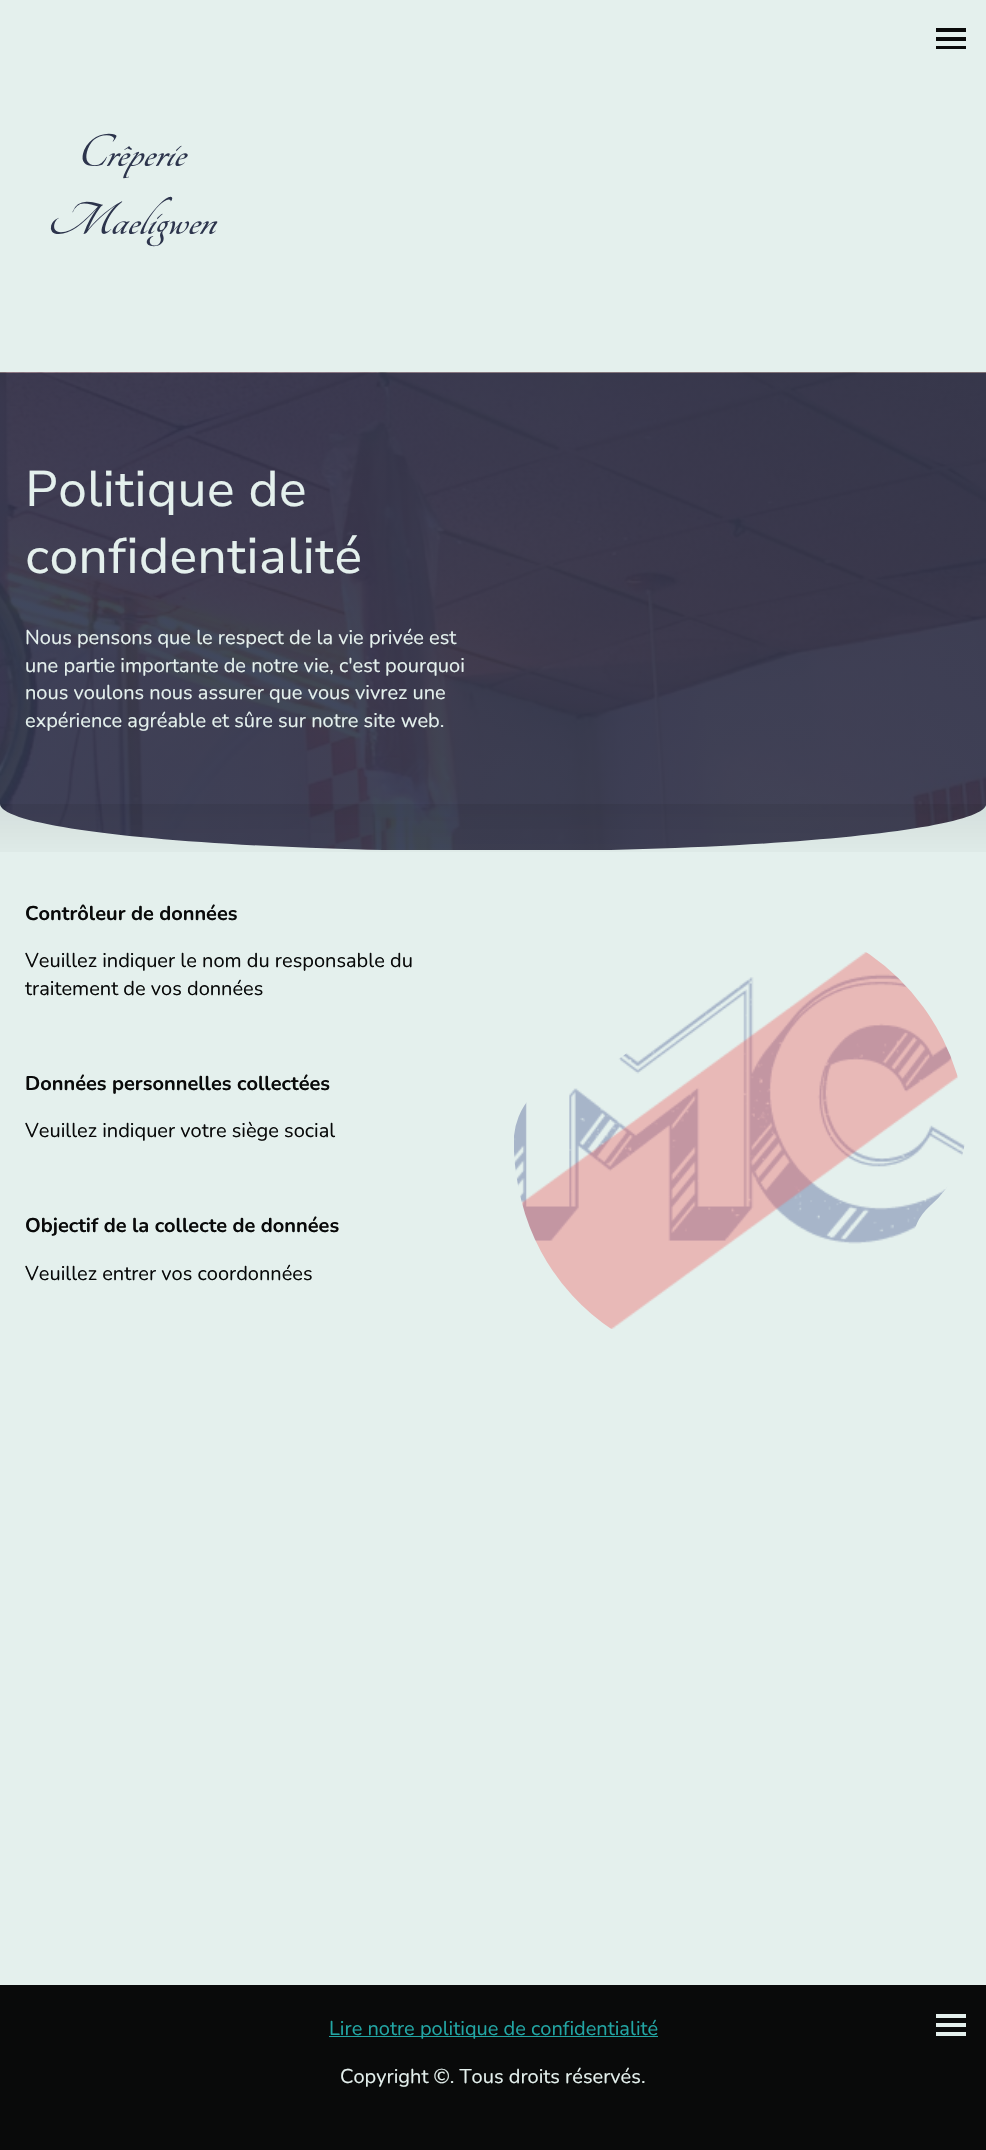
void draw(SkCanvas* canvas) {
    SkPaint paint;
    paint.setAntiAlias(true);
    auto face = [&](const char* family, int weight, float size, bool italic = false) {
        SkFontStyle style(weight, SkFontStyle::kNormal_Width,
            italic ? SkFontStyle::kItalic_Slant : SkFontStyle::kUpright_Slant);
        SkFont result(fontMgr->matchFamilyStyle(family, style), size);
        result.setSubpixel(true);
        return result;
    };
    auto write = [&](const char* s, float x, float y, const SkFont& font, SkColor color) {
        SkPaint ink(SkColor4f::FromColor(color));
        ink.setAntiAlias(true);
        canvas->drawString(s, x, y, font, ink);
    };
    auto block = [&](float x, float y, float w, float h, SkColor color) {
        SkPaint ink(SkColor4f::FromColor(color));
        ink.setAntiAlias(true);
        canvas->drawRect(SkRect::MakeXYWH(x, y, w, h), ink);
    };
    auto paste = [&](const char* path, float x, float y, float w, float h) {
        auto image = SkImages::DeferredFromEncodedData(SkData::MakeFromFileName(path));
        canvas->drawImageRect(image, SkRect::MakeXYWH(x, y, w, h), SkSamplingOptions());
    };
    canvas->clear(SkColorSetRGB(228, 240, 237));
    block(936, 28, 30, 4, SkColorSetRGB(9, 10, 10));
    block(936, 37, 30, 4, SkColorSetRGB(9, 10, 10));
    block(936, 46, 30, 3, SkColorSetRGB(9, 10, 10));
    paste("pic1.png", 50, 133, 168, 114);
    paste("pic2.png", 0, 372, 986, 478);
    auto kFont1 = face("Nunito Sans", 400, 50);
    write("Politique de", 25, 506, kFont1, SkColorSetRGB(228, 240, 237));
    write("confidentialité", 25, 573, kFont1, SkColorSetRGB(228, 240, 237));
    auto kFont2 = face("Nunito", 400, 20);
    write("Nous pensons que le respect de la vie privée est", 25, 644, kFont2, SkColorSetRGB(228, 240, 237));
    write("une partie importante de notre vie, c'est pourquoi", 25, 672, kFont2, SkColorSetRGB(228, 240, 237));
    write("nous voulons nous assurer que vous vivrez une", 25, 699, kFont2, SkColorSetRGB(228, 240, 237));
    write("expérience agréable et sûre sur notre site web.", 25, 727, kFont2, SkColorSetRGB(228, 240, 237));
    paste("pic3.png", 0, 804, 986, 48);
    {
        const SkColor colors[] = {SkColorSetARGB(18, 0, 0, 0), SkColorSetARGB(0, 0, 0, 0)};
        const float stops[] = {0, 1};
        const SkPoint ends[] = {{493, 804}, {493, 873}};
        paint.setShader(SkGradientShader::MakeLinear(ends, colors, stops, 2, SkTileMode::kClamp));
        paint.setAlpha(255);
    }
    canvas->drawRect(SkRect::MakeXYWH(0, 804, 986, 48), paint);
    auto kFont3 = face("Nunito", 700, 20);
    write("Contrôleur de données", 25, 920, kFont3, SkColorSetRGB(9, 10, 10));
    write("Veuillez indiquer le nom du responsable du", 25, 967, kFont2, SkColorSetRGB(9, 10, 10));
    write("traitement de vos données", 25, 995, kFont2, SkColorSetRGB(9, 10, 10));
    write("Données personnelles collectées", 25, 1090, kFont3, SkColorSetRGB(9, 10, 10));
    write("Veuillez indiquer votre siège social", 25, 1137, kFont2, SkColorSetRGB(9, 10, 10));
    write("Objectif de la collecte de données", 25, 1232, kFont3, SkColorSetRGB(9, 10, 10));
    write("Veuillez entrer vos coordonnées", 25, 1280, kFont2, SkColorSetRGB(9, 10, 10));
    paste("pic4.png", 514, 952, 451, 377);
    block(0, 1985, 986, 165, SkColorSetRGB(9, 10, 10));
    block(329, 2036, 329, 1, SkColorSetRGB(34, 166, 164));
    write("Lire notre politique de confidentialité", 329, 2035, kFont2, SkColorSetRGB(34, 166, 164));
    block(936, 2014, 30, 4, SkColorSetRGB(228, 240, 237));
    block(936, 2023, 30, 4, SkColorSetRGB(228, 240, 237));
    block(936, 2032, 30, 4, SkColorSetRGB(228, 240, 237));
    write("Copyright ©. Tous droits réservés.", 340, 2083, kFont2, SkColorSetRGB(228, 240, 237));
}
